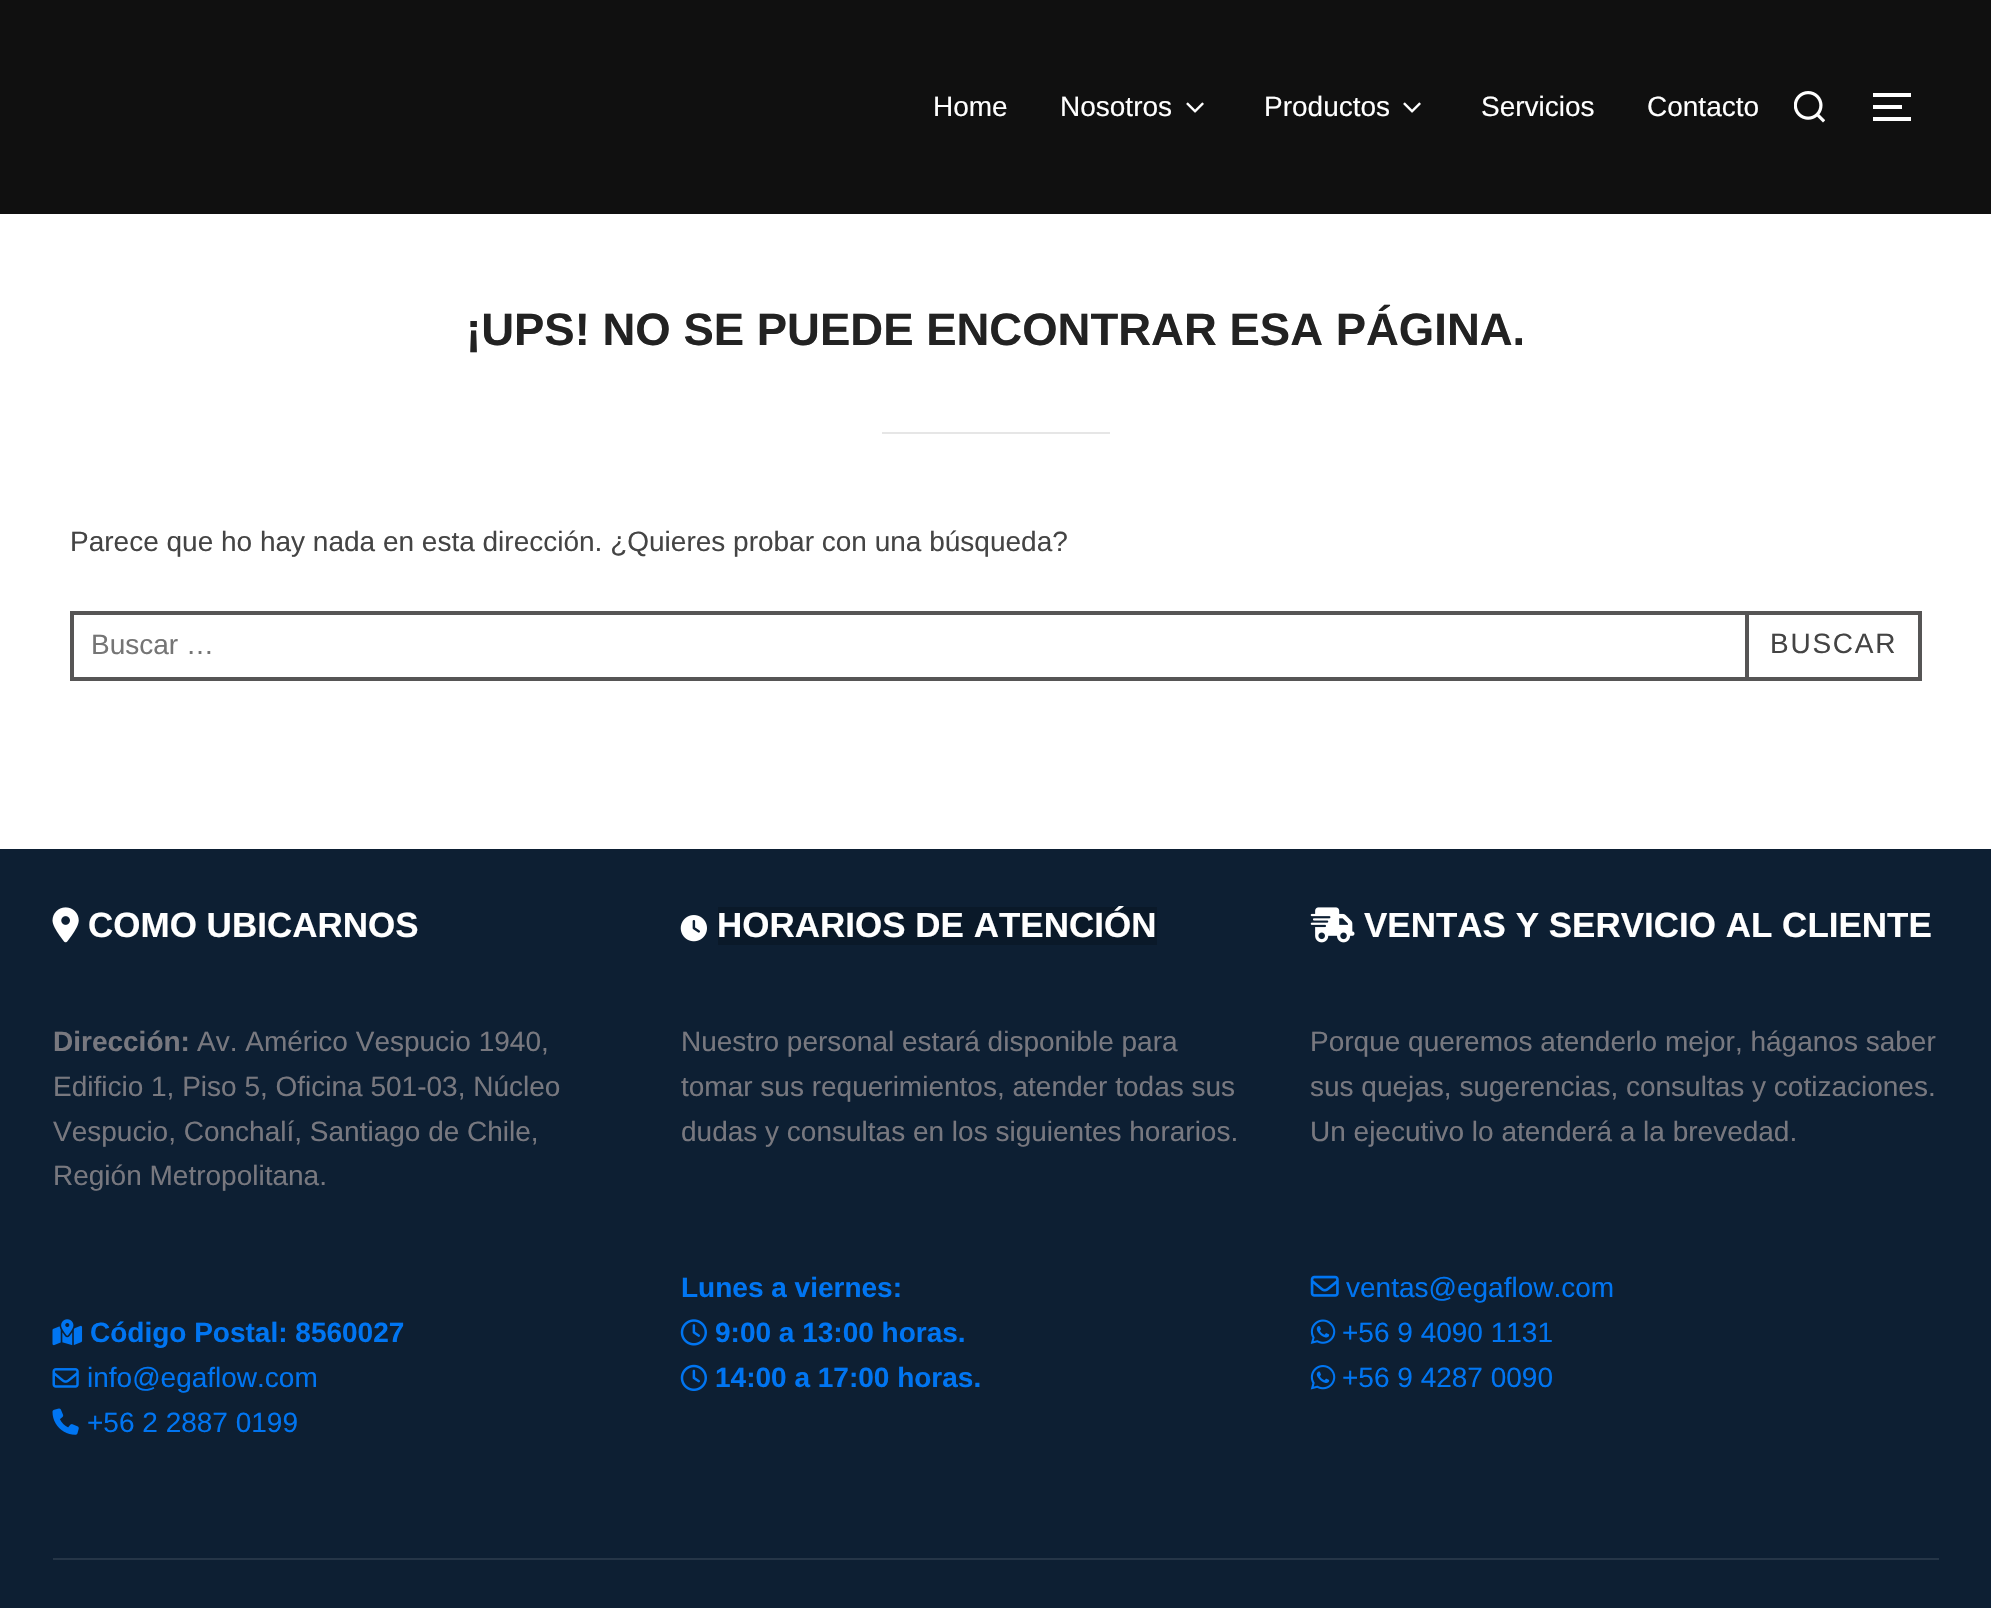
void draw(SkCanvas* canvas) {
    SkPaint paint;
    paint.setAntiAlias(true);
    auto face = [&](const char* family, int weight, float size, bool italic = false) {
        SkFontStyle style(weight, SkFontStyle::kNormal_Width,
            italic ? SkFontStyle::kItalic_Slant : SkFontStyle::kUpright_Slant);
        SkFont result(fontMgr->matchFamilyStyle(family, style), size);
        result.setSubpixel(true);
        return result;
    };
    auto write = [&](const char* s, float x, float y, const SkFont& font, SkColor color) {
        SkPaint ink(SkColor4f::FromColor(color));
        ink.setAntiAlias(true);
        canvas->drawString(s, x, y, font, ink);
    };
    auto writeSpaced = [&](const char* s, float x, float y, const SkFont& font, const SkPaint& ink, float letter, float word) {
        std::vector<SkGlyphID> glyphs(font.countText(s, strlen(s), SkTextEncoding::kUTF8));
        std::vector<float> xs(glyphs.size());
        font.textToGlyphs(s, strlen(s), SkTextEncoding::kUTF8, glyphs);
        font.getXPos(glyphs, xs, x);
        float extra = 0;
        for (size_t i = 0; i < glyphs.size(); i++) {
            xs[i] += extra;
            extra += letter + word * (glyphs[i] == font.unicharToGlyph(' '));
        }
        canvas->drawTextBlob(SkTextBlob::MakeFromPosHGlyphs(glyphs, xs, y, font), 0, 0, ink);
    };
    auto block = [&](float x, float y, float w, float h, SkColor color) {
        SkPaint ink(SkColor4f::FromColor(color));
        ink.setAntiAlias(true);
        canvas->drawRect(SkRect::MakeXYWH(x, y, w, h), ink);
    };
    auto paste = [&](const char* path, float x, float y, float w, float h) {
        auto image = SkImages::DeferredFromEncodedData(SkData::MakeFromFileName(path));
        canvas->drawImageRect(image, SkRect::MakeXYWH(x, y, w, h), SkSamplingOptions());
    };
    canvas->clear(SK_ColorWHITE);
    block(0, 0, 1991, 214, SkColorSetRGB(16, 16, 16));
    auto kFont1 = face("Liberation Sans", 400, 28);
    write("Home", 933, 116, kFont1, SK_ColorWHITE);
    write("Nosotros", 1060, 116, kFont1, SK_ColorWHITE);
    paste("pic1.png", 1186, 102, 18, 11);
    write("Productos", 1264, 116, kFont1, SK_ColorWHITE);
    paste("pic1.png", 1403, 102, 18, 11);
    write("Servicios", 1481, 116, kFont1, SK_ColorWHITE);
    write("Contacto", 1647, 116, kFont1, SK_ColorWHITE);
    paste("pic2.png", 1794, 91, 31, 32);
    block(1873, 93, 38, 4, SK_ColorWHITE);
    block(1873, 105, 29, 4, SK_ColorWHITE);
    block(1873, 117, 38, 4, SK_ColorWHITE);
    auto kFont2 = face("Liberation Sans", 700, 45.5f);
    write("¡UPS! NO SE PUEDE ENCONTRAR ESA PÁGINA.", 466, 345, kFont2, SkColorSetRGB(34, 34, 34));
    block(882, 432, 228, 2, SkColorSetRGB(230, 230, 230));
    write("Parece que ho hay nada en esta dirección. ¿Quieres probar con una búsqueda?", 70, 551, kFont1, SkColorSetRGB(68, 68, 68));
    paint.setStyle(SkPaint::kStroke_Style);
    paint.setStrokeWidth(4);
    paint.setColor(SkColorSetRGB(86, 85, 85));
    canvas->drawRect(SkRect::MakeXYWH(72, 613, 1848, 66), paint);
    write("Buscar …", 91, 654, kFont1, SkColorSetRGB(117, 117, 117));
    canvas->drawRect(SkRect::MakeXYWH(1747, 613, 173, 66), paint);
    paint.setStyle(SkPaint::kFill_Style);
    paint.setColor(SkColorSetRGB(68, 68, 68));
    writeSpaced("BUSCAR", 1770, 653, kFont1, paint, 1.75f, 0);
    block(0, 849, 1991, 759, SkColorSetRGB(13, 31, 51));
    paste("pic3.png", 52, 907, 27, 36);
    auto kFont3 = face("Liberation Sans", 700, 35);
    write("COMO UBICARNOS", 88, 937, kFont3, SK_ColorWHITE);
    auto kFont4 = face("Liberation Sans", 700, 28);
    write("Dirección:", 53, 1051, kFont4, SkColorSetRGB(120, 120, 127));
    write("Av. Américo Vespucio 1940,", 197, 1051, kFont1, SkColorSetRGB(120, 120, 127));
    write("Edificio 1, Piso 5, Oficina 501-03, Núcleo", 53, 1096, kFont1, SkColorSetRGB(120, 120, 127));
    write("Vespucio, Conchalí, Santiago de Chile,", 53, 1141, kFont1, SkColorSetRGB(120, 120, 127));
    write("Región Metropolitana.", 53, 1185, kFont1, SkColorSetRGB(120, 120, 127));
    paste("pic4.png", 52, 1319, 31, 27);
    write("Código Postal: 8560027", 90, 1342, kFont4, SkColorSetRGB(0, 117, 242));
    paste("pic5.png", 52, 1368, 27, 20);
    write("info@egaflow.com", 87, 1387, kFont1, SkColorSetRGB(0, 117, 242));
    paste("pic6.png", 52, 1408, 27, 27);
    write("+56 2 2887 0199", 87, 1432, kFont1, SkColorSetRGB(0, 117, 242));
    paste("pic7.png", 680, 915, 27, 27);
    block(718, 907, 439, 38, SkColorSetRGB(10, 25, 41));
    write("HORARIOS DE ATENCIÓN", 717, 937, kFont3, SK_ColorWHITE);
    write("Nuestro personal estará disponible para", 681, 1051, kFont1, SkColorSetRGB(120, 120, 127));
    write("tomar sus requerimientos, atender todas sus", 681, 1096, kFont1, SkColorSetRGB(120, 120, 127));
    write("dudas y consultas en los siguientes horarios.", 681, 1141, kFont1, SkColorSetRGB(120, 120, 127));
    write("Lunes a viernes:", 681, 1297, kFont4, SkColorSetRGB(0, 117, 242));
    paste("pic8.png", 680, 1319, 27, 27);
    write("9:00 a 13:00 horas.", 715, 1342, kFont4, SkColorSetRGB(0, 117, 242));
    paste("pic9.png", 680, 1364, 27, 27);
    write("14:00 a 17:00 horas.", 715, 1387, kFont4, SkColorSetRGB(0, 117, 242));
    paste("pic10.png", 1310, 907, 45, 36);
    write("VENTAS Y SERVICIO AL CLIENTE", 1364, 937, kFont3, SK_ColorWHITE);
    write("Porque queremos atenderlo mejor, háganos saber", 1310, 1051, kFont1, SkColorSetRGB(120, 120, 127));
    write("sus quejas, sugerencias, consultas y cotizaciones.", 1310, 1096, kFont1, SkColorSetRGB(120, 120, 127));
    write("Un ejecutivo lo atenderá a la brevedad.", 1310, 1141, kFont1, SkColorSetRGB(120, 120, 127));
    paste("pic11.png", 1310, 1275, 29, 22);
    write("ventas@egaflow.com", 1346, 1297, kFont1, SkColorSetRGB(0, 117, 242));
    paste("pic12.png", 1310, 1319, 26, 25);
    write("+56 9 4090 1131", 1342, 1342, kFont1, SkColorSetRGB(0, 117, 242));
    paste("pic13.png", 1310, 1365, 26, 25);
    write("+56 9 4287 0090", 1342, 1387, kFont1, SkColorSetRGB(0, 117, 242));
    block(53, 1558, 1886, 2, SkColorSetRGB(37, 53, 71));
}
